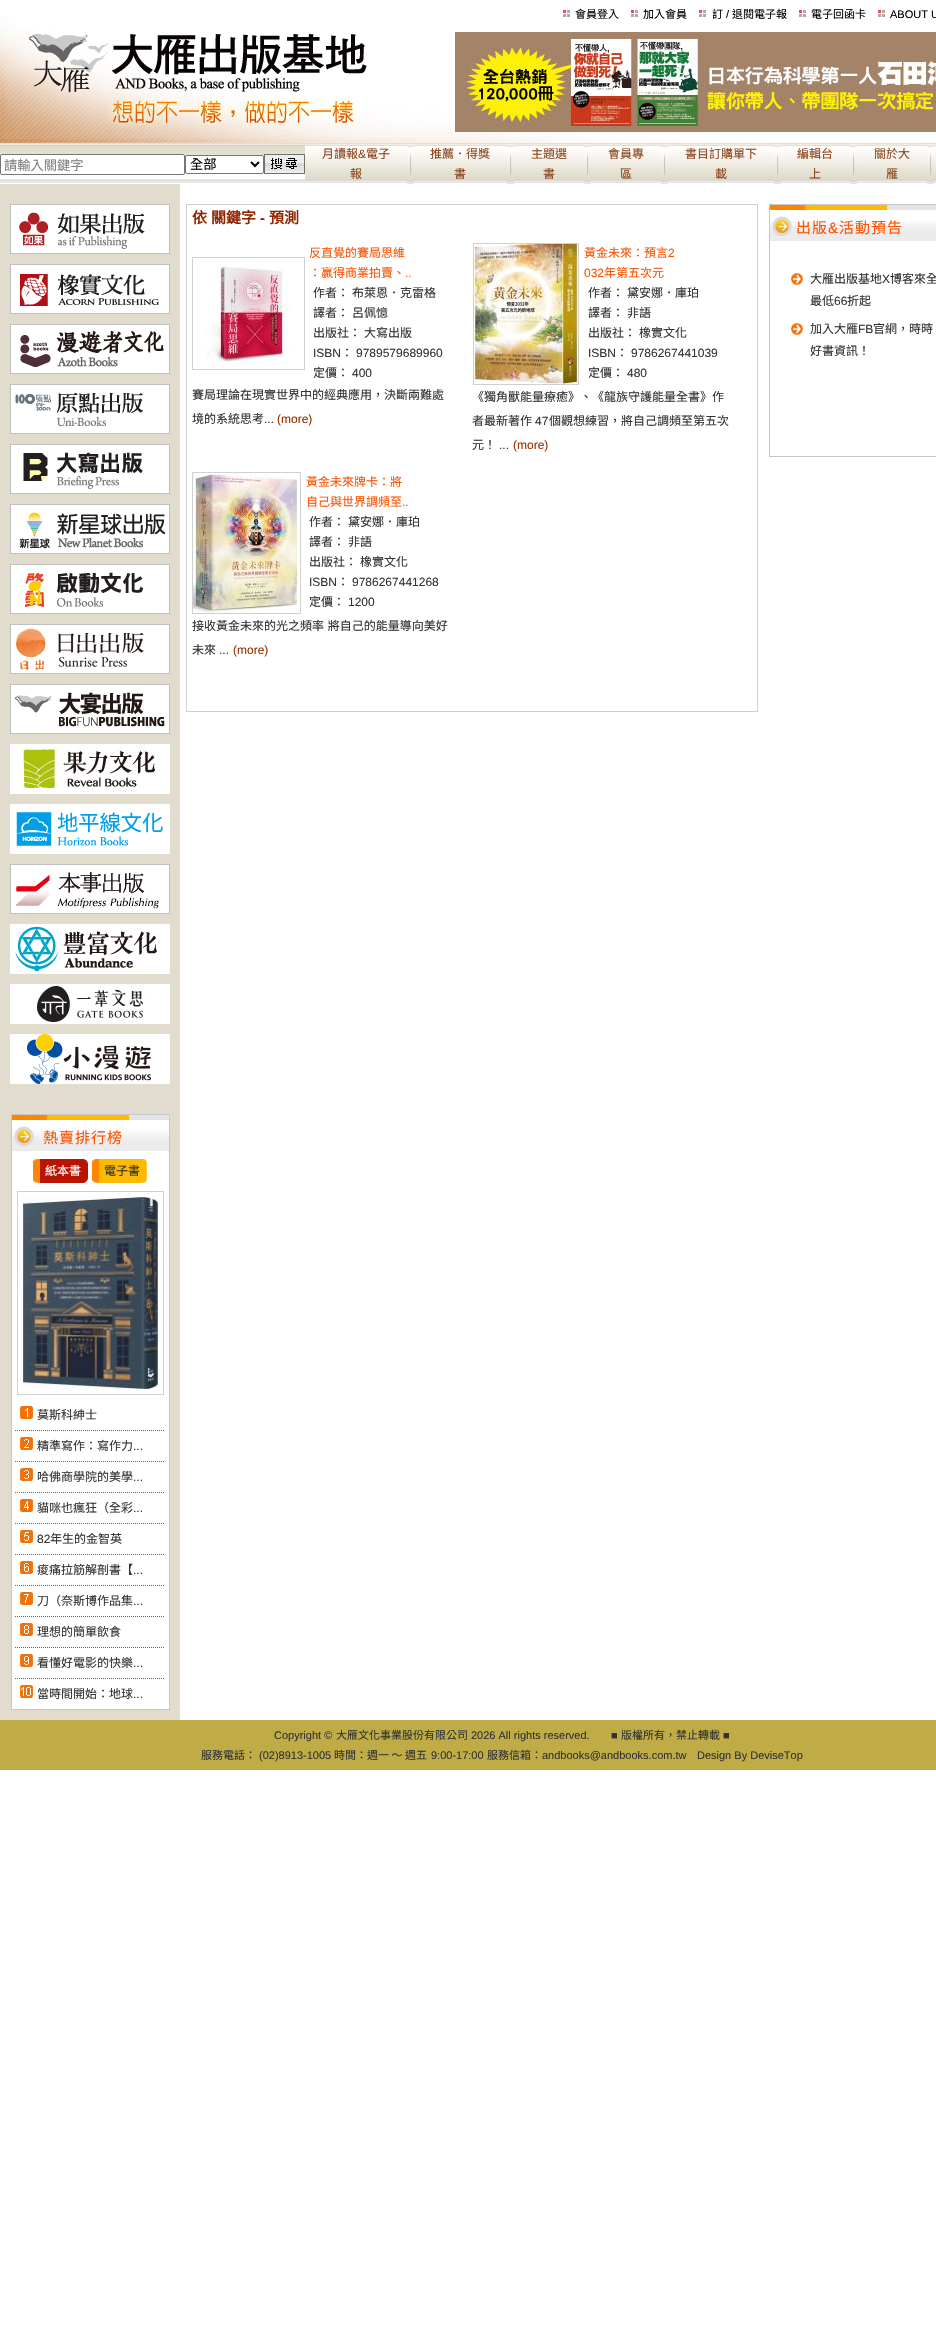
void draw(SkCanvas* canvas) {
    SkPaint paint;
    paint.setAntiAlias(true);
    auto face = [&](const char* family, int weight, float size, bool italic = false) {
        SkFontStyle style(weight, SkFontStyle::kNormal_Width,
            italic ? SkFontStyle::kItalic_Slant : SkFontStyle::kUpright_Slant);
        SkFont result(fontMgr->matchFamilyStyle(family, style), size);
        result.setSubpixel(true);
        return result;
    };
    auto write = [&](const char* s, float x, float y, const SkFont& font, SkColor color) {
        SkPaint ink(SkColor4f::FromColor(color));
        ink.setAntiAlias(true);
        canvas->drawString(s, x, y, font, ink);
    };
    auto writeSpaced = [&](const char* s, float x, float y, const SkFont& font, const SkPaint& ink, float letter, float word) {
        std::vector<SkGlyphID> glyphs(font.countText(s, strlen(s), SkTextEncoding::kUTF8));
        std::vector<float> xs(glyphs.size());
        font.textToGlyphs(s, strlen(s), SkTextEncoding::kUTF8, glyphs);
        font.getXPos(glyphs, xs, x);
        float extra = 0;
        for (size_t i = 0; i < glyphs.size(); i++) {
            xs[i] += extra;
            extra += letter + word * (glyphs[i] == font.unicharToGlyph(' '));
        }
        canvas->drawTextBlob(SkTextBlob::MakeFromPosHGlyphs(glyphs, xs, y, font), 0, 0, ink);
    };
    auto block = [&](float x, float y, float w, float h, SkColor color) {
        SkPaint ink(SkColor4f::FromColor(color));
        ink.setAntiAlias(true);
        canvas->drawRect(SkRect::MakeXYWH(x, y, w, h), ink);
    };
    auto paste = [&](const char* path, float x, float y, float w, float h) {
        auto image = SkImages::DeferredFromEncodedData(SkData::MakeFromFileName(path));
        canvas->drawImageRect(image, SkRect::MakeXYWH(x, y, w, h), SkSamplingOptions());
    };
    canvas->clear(SK_ColorWHITE);
    paste("pic1.png", 0, 16, 16, 12);
    paste("pic2.png", 563, 10, 7, 7);
    auto kFont1 = face("Noto Sans CJK TC", 400, 11);
    write("會員登入", 575, 18, kFont1, SK_ColorBLACK);
    paste("pic2.png", 631, 10, 7, 7);
    write("加入會員", 643, 18, kFont1, SK_ColorBLACK);
    paste("pic2.png", 699, 10, 7, 7);
    write("訂", 712, 18, kFont1, SK_ColorBLACK);
    auto kFont2 = face("Liberation Sans", 400, 11);
    write("/", 726, 18, kFont2, SK_ColorBLACK);
    write("退閱電子報", 732, 18, kFont1, SK_ColorBLACK);
    paste("pic2.png", 799, 10, 7, 7);
    write("電子回函卡", 811, 18, kFont1, SK_ColorBLACK);
    paste("pic2.png", 878, 10, 7, 7);
    write("ABOUT U", 890, 18, kFont2, SK_ColorBLACK);
    paste("pic3.png", 0, 28, 455, 104);
    paste("pic4.png", 455, 32, 481, 100);
    paste("pic5.png", 0, 132, 936, 12);
    paste("pic6.png", 0, 144, 305, 39);
    paint.setColor(SK_ColorWHITE);
    canvas->drawRoundRect(SkRect::MakeXYWH(0.5f, 154.5f, 184, 20), 1.5f, 1.5f, paint);
    paint.setStyle(SkPaint::kStroke_Style);
    paint.setStrokeWidth(1);
    paint.setColor(SkColorSetRGB(118, 118, 118));
    canvas->drawRoundRect(SkRect::MakeXYWH(0.5f, 154.5f, 184, 20), 1.5f, 1.5f, paint);
    auto kFont3 = face("Noto Sans CJK TC", 400, 13.25f);
    write("請輸入關鍵字", 4, 170, kFont3, SkColorSetRGB(128, 128, 128));
    paint.setStyle(SkPaint::kFill_Style);
    paint.setColor(SK_ColorWHITE);
    canvas->drawRoundRect(SkRect::MakeXYWH(185.5f, 155.5f, 78, 18), 1.5f, 1.5f, paint);
    paint.setStyle(SkPaint::kStroke_Style);
    paint.setColor(SkColorSetRGB(118, 118, 118));
    canvas->drawRoundRect(SkRect::MakeXYWH(185.5f, 155.5f, 78, 18), 1.5f, 1.5f, paint);
    paint.setStrokeWidth(2);
    paint.setColor(SK_ColorBLACK);
    canvas->drawPath(SkPathBuilder().moveTo(251, 162).lineTo(255, 166).lineTo(259, 162).detach(), paint);
    write("全部", 190, 169, kFont3, SK_ColorBLACK);
    paste("pic7.png", 264, 154, 41, 20);
    paste("pic8.png", 305, 144, 631, 1);
    paste("pic9.png", 305, 145, 102, 38);
    auto kFont4 = face("Noto Sans CJK TC", 400, 12);
    write("月讀報", 322, 158, kFont4, SkColorSetRGB(138, 69, 27));
    auto kFont5 = face("Liberation Sans", 400, 12);
    write("&", 358, 158, kFont5, SkColorSetRGB(138, 69, 27));
    write("電子", 366, 158, kFont4, SkColorSetRGB(138, 69, 27));
    write("報", 350, 178, kFont4, SkColorSetRGB(138, 69, 27));
    paste("pic10.png", 407, 145, 7, 39);
    paste("pic11.png", 414, 145, 93, 38);
    write("推薦．得獎", 430, 158, kFont4, SkColorSetRGB(138, 69, 27));
    write("書", 454, 178, kFont4, SkColorSetRGB(138, 69, 27));
    paste("pic10.png", 507, 145, 7, 39);
    paste("pic12.png", 514, 145, 70, 38);
    write("主題選", 531, 158, kFont4, SkColorSetRGB(138, 69, 27));
    write("書", 543, 178, kFont4, SkColorSetRGB(138, 69, 27));
    paste("pic10.png", 584, 145, 7, 39);
    paste("pic12.png", 591, 145, 70, 38);
    write("會員專", 608, 158, kFont4, SkColorSetRGB(138, 69, 27));
    write("區", 620, 178, kFont4, SkColorSetRGB(138, 69, 27));
    paste("pic10.png", 661, 145, 7, 39);
    paste("pic13.png", 668, 145, 106, 38);
    write("書目訂購單下", 685, 158, kFont4, SkColorSetRGB(138, 69, 27));
    write("載", 715, 178, kFont4, SkColorSetRGB(138, 69, 27));
    paste("pic10.png", 774, 145, 7, 39);
    paste("pic14.png", 781, 145, 69, 38);
    write("編輯台", 797, 158, kFont4, SkColorSetRGB(138, 69, 27));
    write("上", 809, 178, kFont4, SkColorSetRGB(138, 69, 27));
    paste("pic10.png", 850, 145, 7, 39);
    paste("pic12.png", 857, 145, 70, 38);
    write("關於大", 874, 158, kFont4, SkColorSetRGB(138, 69, 27));
    write("雁", 886, 178, kFont4, SkColorSetRGB(138, 69, 27));
    paste("pic10.png", 927, 145, 7, 39);
    paste("pic15.png", 934, 145, 2, 38);
    paint.setStrokeWidth(1);
    paint.setColor(SkColorSetRGB(208, 208, 208));
    canvas->drawRect(SkRect::MakeXYWH(186.5f, 204.5f, 571, 507), paint);
    auto kFont6 = face("Noto Sans CJK TC", 700, 15);
    write("依", 192, 223, kFont6, SkColorSetRGB(144, 37, 0));
    write("關鍵字", 211, 223, kFont6, SkColorSetRGB(144, 37, 0));
    auto kFont7 = face("Liberation Sans", 700, 15);
    write("-", 260, 223, kFont7, SkColorSetRGB(144, 37, 0));
    write("預測", 269, 223, kFont6, SkColorSetRGB(144, 37, 0));
    canvas->drawRect(SkRect::MakeXYWH(192.5f, 257.5f, 112, 112), paint);
    paste("pic16.png", 206, 266, 84, 103);
    write("反直覺的賽局思維", 309, 257, kFont4, SkColorSetRGB(254, 82, 0));
    write("：贏得商業拍賣、", 309, 277, kFont4, SkColorSetRGB(254, 82, 0));
    write("..", 405, 277, kFont5, SkColorSetRGB(254, 82, 0));
    write("作者：", 313, 297, kFont4, SkColorSetRGB(51, 51, 51));
    write("布萊恩．克雷格", 352, 297, kFont4, SkColorSetRGB(51, 51, 51));
    write("譯者：", 313, 317, kFont4, SkColorSetRGB(51, 51, 51));
    write("呂佩憶", 352, 317, kFont4, SkColorSetRGB(51, 51, 51));
    write("出版社：", 313, 337, kFont4, SkColorSetRGB(51, 51, 51));
    write("大寫出版", 364, 337, kFont4, SkColorSetRGB(51, 51, 51));
    write("ISBN", 313, 357, kFont5, SkColorSetRGB(51, 51, 51));
    write("：", 341, 357, kFont4, SkColorSetRGB(51, 51, 51));
    write("9789579689960", 356, 357, kFont5, SkColorSetRGB(51, 51, 51));
    write("定價：", 313, 377, kFont4, SkColorSetRGB(51, 51, 51));
    write("400", 352, 377, kFont5, SkColorSetRGB(51, 51, 51));
    write("賽局理論在現實世界中的經典應用，決斷兩難處", 192, 399, kFont4, SkColorSetRGB(51, 51, 51));
    write("境的系統思考", 192, 423, kFont4, SkColorSetRGB(51, 51, 51));
    write("...", 264, 423, kFont5, SkColorSetRGB(51, 51, 51));
    write("(more)", 277, 423, kFont5, SkColorSetRGB(153, 51, 0));
    canvas->drawRect(SkRect::MakeXYWH(473.5f, 243.5f, 105, 141), paint);
    paste("pic17.png", 474, 244, 104, 140);
    write("黃金未來：預言", 584, 257, kFont4, SkColorSetRGB(254, 82, 0));
    write("2", 668, 257, kFont5, SkColorSetRGB(254, 82, 0));
    write("032", 584, 277, kFont5, SkColorSetRGB(254, 82, 0));
    write("年第五次元", 604, 277, kFont4, SkColorSetRGB(254, 82, 0));
    write("作者：", 588, 297, kFont4, SkColorSetRGB(51, 51, 51));
    write("黛安娜．庫珀", 627, 297, kFont4, SkColorSetRGB(51, 51, 51));
    write("譯者：", 588, 317, kFont4, SkColorSetRGB(51, 51, 51));
    write("非語", 627, 317, kFont4, SkColorSetRGB(51, 51, 51));
    write("出版社：", 588, 337, kFont4, SkColorSetRGB(51, 51, 51));
    write("橡實文化", 639, 337, kFont4, SkColorSetRGB(51, 51, 51));
    write("ISBN", 588, 357, kFont5, SkColorSetRGB(51, 51, 51));
    write("：", 616, 357, kFont4, SkColorSetRGB(51, 51, 51));
    write("9786267441039", 631, 357, kFont5, SkColorSetRGB(51, 51, 51));
    write("定價：", 588, 377, kFont4, SkColorSetRGB(51, 51, 51));
    write("480", 627, 377, kFont5, SkColorSetRGB(51, 51, 51));
    write("《獨角獸能量療癒》、《龍族守護能量全書》作", 472, 401, kFont4, SkColorSetRGB(51, 51, 51));
    write("者最新著作", 472, 425, kFont4, SkColorSetRGB(51, 51, 51));
    write("47", 535, 425, kFont5, SkColorSetRGB(51, 51, 51));
    write("個觀想練習，將自己調頻至第五次", 549, 425, kFont4, SkColorSetRGB(51, 51, 51));
    write("元！", 472, 449, kFont4, SkColorSetRGB(51, 51, 51));
    write("...", 499, 449, kFont5, SkColorSetRGB(51, 51, 51));
    write("(more)", 513, 449, kFont5, SkColorSetRGB(153, 51, 0));
    canvas->drawRect(SkRect::MakeXYWH(192.5f, 472.5f, 108, 141), paint);
    paste("pic18.png", 193, 473, 106, 140);
    write("黃金未來牌卡：將", 306, 486, kFont4, SkColorSetRGB(254, 82, 0));
    write("自己與世界調頻至", 306, 506, kFont4, SkColorSetRGB(254, 82, 0));
    write("..", 402, 506, kFont5, SkColorSetRGB(254, 82, 0));
    write("作者：", 309, 526, kFont4, SkColorSetRGB(51, 51, 51));
    write("黛安娜．庫珀", 348, 526, kFont4, SkColorSetRGB(51, 51, 51));
    write("譯者：", 309, 546, kFont4, SkColorSetRGB(51, 51, 51));
    write("非語", 348, 546, kFont4, SkColorSetRGB(51, 51, 51));
    write("出版社：", 309, 566, kFont4, SkColorSetRGB(51, 51, 51));
    write("橡實文化", 360, 566, kFont4, SkColorSetRGB(51, 51, 51));
    write("ISBN", 309, 586, kFont5, SkColorSetRGB(51, 51, 51));
    write("：", 337, 586, kFont4, SkColorSetRGB(51, 51, 51));
    write("9786267441268", 352, 586, kFont5, SkColorSetRGB(51, 51, 51));
    write("定價：", 309, 606, kFont4, SkColorSetRGB(51, 51, 51));
    write("1200", 348, 606, kFont5, SkColorSetRGB(51, 51, 51));
    paint.setStyle(SkPaint::kFill_Style);
    paint.setColor(SkColorSetRGB(51, 51, 51));
    writeSpaced("接收黃金未來的光之頻率 將自己的能量導向美好", 192, 630, kFont4, paint, 0, 1);
    write("未來", 192, 654, kFont4, SkColorSetRGB(51, 51, 51));
    write("...", 219, 654, kFont5, SkColorSetRGB(51, 51, 51));
    write("(more)", 233, 654, kFont5, SkColorSetRGB(153, 51, 0));
    paste("pic19.png", 769, 204, 1, 6);
    paste("pic20.png", 897, 204, 39, 6);
    paste("pic21.png", 770, 204, 127, 6);
    block(769, 210, 1, 246, SkColorSetRGB(198, 198, 198));
    paste("pic22.png", 770, 221, 166, 20);
    paste("pic23.png", 772, 216, 22, 20);
    auto kFont8 = face("Noto Sans CJK TC", 400, 15);
    paint.setColor(SkColorSetRGB(254, 82, 0));
    writeSpaced("出版", 796, 233, kFont8, paint, 1, 0);
    auto kFont9 = face("Liberation Sans", 400, 15);
    writeSpaced("&", 828, 233, kFont9, paint, 1, 0);
    writeSpaced("活動預告", 839, 233, kFont8, paint, 1, 0);
    paste("pic24.png", 791, 273, 12, 12);
    write("大雁出版基地", 810, 283, kFont4, SkColorSetRGB(51, 51, 51));
    write("X", 882, 283, kFont5, SkColorSetRGB(51, 51, 51));
    write("博客來全", 890, 283, kFont4, SkColorSetRGB(51, 51, 51));
    write("最低", 810, 305, kFont4, SkColorSetRGB(51, 51, 51));
    write("66", 834, 305, kFont5, SkColorSetRGB(51, 51, 51));
    write("折起", 847, 305, kFont4, SkColorSetRGB(51, 51, 51));
    paste("pic24.png", 791, 323, 12, 12);
    write("加入大雁", 810, 333, kFont4, SkColorSetRGB(51, 51, 51));
    write("FB", 858, 333, kFont5, SkColorSetRGB(51, 51, 51));
    write("官網，時時", 873, 333, kFont4, SkColorSetRGB(51, 51, 51));
    write("好書資訊！", 810, 355, kFont4, SkColorSetRGB(51, 51, 51));
    block(769, 456, 167, 1, SkColorSetRGB(197, 197, 197));
    block(0, 184, 180, 1536, SkColorSetRGB(225, 220, 205));
    paste("pic25.png", 10, 204, 160, 50);
    paste("pic26.png", 10, 264, 160, 50);
    paste("pic27.png", 10, 324, 160, 50);
    paste("pic28.png", 10, 384, 160, 50);
    paste("pic29.png", 10, 444, 160, 50);
    paste("pic30.png", 10, 504, 160, 50);
    paste("pic31.png", 10, 564, 160, 50);
    paste("pic32.png", 10, 624, 160, 50);
    paste("pic33.png", 10, 684, 160, 50);
    paste("pic34.png", 10, 744, 160, 50);
    paste("pic35.png", 10, 804, 160, 50);
    paste("pic36.png", 10, 864, 160, 50);
    paste("pic37.png", 10, 924, 160, 50);
    paste("pic38.png", 10, 984, 160, 40);
    paste("pic39.png", 10, 1034, 160, 50);
    paste("pic19.png", 11, 1114, 1, 6);
    paste("pic40.png", 139, 1114, 30, 6);
    paste("pic21.png", 12, 1114, 127, 6);
    paste("pic41.png", 169, 1114, 1, 6);
    block(11, 1120, 1, 589, SkColorSetRGB(198, 198, 198));
    paste("pic42.png", 12, 1120, 157, 31);
    paste("pic23.png", 14, 1126, 22, 20);
    writeSpaced("熱賣排行榜", 43, 1143, kFont8, paint, 1, 0);
    block(169, 1120, 1, 589, SkColorSetRGB(198, 198, 198));
    block(12, 1151, 157, 558, SK_ColorWHITE);
    paste("pic43.png", 33, 1159, 7, 24);
    block(40, 1159, 41, 24, SkColorSetRGB(184, 20, 0));
    write("紙本書", 45, 1175, kFont4, SK_ColorWHITE);
    paste("pic44.png", 81, 1159, 7, 24);
    paste("pic45.png", 92, 1159, 7, 24);
    block(99, 1159, 41, 24, SkColorSetRGB(254, 186, 0));
    write("電子書", 104, 1175, kFont4, SkColorSetRGB(51, 51, 51));
    paste("pic46.png", 140, 1159, 7, 24);
    paint.setStyle(SkPaint::kStroke_Style);
    paint.setColor(SkColorSetRGB(208, 208, 208));
    canvas->drawRect(SkRect::MakeXYWH(17.5f, 1191.5f, 146, 203), paint);
    paste("pic47.png", 23, 1197, 135, 192);
    paint.setColor(SkColorSetRGB(102, 102, 102));
    paint.setPathEffect(SkDashPathEffect::Make({{1, 1}}, 0));
    canvas->drawPath(SkPathBuilder().moveTo(15, 1430.5f).lineTo(165, 1430.5f).detach(), paint);
    paint.setPathEffect(nullptr);
    paste("pic48.png", 20, 1406, 13, 13);
    write("莫斯科紳士", 37, 1419, kFont4, SkColorSetRGB(51, 51, 51));
    paint.setPathEffect(SkDashPathEffect::Make({{1, 1}}, 0));
    canvas->drawPath(SkPathBuilder().moveTo(15, 1461.5f).lineTo(165, 1461.5f).detach(), paint);
    paint.setPathEffect(nullptr);
    paste("pic49.png", 20, 1437, 13, 13);
    write("精準寫作：寫作力", 37, 1450, kFont4, SkColorSetRGB(51, 51, 51));
    write("...", 133, 1450, kFont5, SkColorSetRGB(51, 51, 51));
    paint.setPathEffect(SkDashPathEffect::Make({{1, 1}}, 0));
    canvas->drawPath(SkPathBuilder().moveTo(15, 1492.5f).lineTo(165, 1492.5f).detach(), paint);
    paint.setPathEffect(nullptr);
    paste("pic50.png", 20, 1468, 13, 13);
    write("哈佛商學院的美學", 37, 1481, kFont4, SkColorSetRGB(51, 51, 51));
    write("...", 133, 1481, kFont5, SkColorSetRGB(51, 51, 51));
    paint.setPathEffect(SkDashPathEffect::Make({{1, 1}}, 0));
    canvas->drawPath(SkPathBuilder().moveTo(15, 1523.5f).lineTo(165, 1523.5f).detach(), paint);
    paint.setPathEffect(nullptr);
    paste("pic51.png", 20, 1499, 13, 13);
    write("貓咪也瘋狂（全彩", 37, 1512, kFont4, SkColorSetRGB(51, 51, 51));
    write("...", 133, 1512, kFont5, SkColorSetRGB(51, 51, 51));
    paint.setPathEffect(SkDashPathEffect::Make({{1, 1}}, 0));
    canvas->drawPath(SkPathBuilder().moveTo(15, 1554.5f).lineTo(165, 1554.5f).detach(), paint);
    paint.setPathEffect(nullptr);
    paste("pic52.png", 20, 1530, 13, 13);
    write("82", 37, 1543, kFont5, SkColorSetRGB(51, 51, 51));
    write("年生的金智英", 50, 1543, kFont4, SkColorSetRGB(51, 51, 51));
    paint.setPathEffect(SkDashPathEffect::Make({{1, 1}}, 0));
    canvas->drawPath(SkPathBuilder().moveTo(15, 1585.5f).lineTo(165, 1585.5f).detach(), paint);
    paint.setPathEffect(nullptr);
    paste("pic53.png", 20, 1561, 13, 13);
    write("痠痛拉筋解剖書【", 37, 1574, kFont4, SkColorSetRGB(51, 51, 51));
    write("...", 133, 1574, kFont5, SkColorSetRGB(51, 51, 51));
    paint.setPathEffect(SkDashPathEffect::Make({{1, 1}}, 0));
    canvas->drawPath(SkPathBuilder().moveTo(15, 1616.5f).lineTo(165, 1616.5f).detach(), paint);
    paint.setPathEffect(nullptr);
    paste("pic54.png", 20, 1592, 13, 13);
    write("刀（奈斯博作品集", 37, 1605, kFont4, SkColorSetRGB(51, 51, 51));
    write("...", 133, 1605, kFont5, SkColorSetRGB(51, 51, 51));
    paint.setPathEffect(SkDashPathEffect::Make({{1, 1}}, 0));
    canvas->drawPath(SkPathBuilder().moveTo(15, 1647.5f).lineTo(165, 1647.5f).detach(), paint);
    paint.setPathEffect(nullptr);
    paste("pic55.png", 20, 1623, 13, 13);
    write("理想的簡單飲食", 37, 1636, kFont4, SkColorSetRGB(51, 51, 51));
    paint.setPathEffect(SkDashPathEffect::Make({{1, 1}}, 0));
    canvas->drawPath(SkPathBuilder().moveTo(15, 1678.5f).lineTo(165, 1678.5f).detach(), paint);
    paint.setPathEffect(nullptr);
    paste("pic56.png", 20, 1654, 13, 13);
    write("看懂好電影的快樂", 37, 1667, kFont4, SkColorSetRGB(51, 51, 51));
    write("...", 133, 1667, kFont5, SkColorSetRGB(51, 51, 51));
    paste("pic57.png", 20, 1685, 13, 13);
    write("當時間開始：地球", 37, 1698, kFont4, SkColorSetRGB(51, 51, 51));
    write("...", 133, 1698, kFont5, SkColorSetRGB(51, 51, 51));
    block(11, 1709, 159, 1, SkColorSetRGB(197, 197, 197));
    block(0, 1720, 936, 50, SkColorSetRGB(191, 172, 70));
    write("Copyright ©", 274, 1739, kFont2, SkColorSetRGB(51, 51, 51));
    write("大雁文化事業股份有限公司", 336, 1739, kFont1, SkColorSetRGB(51, 51, 51));
    write("2026 All rights reserved.", 471, 1739, kFont2, SkColorSetRGB(51, 51, 51));
    write("■", 611, 1739, kFont2, SkColorSetRGB(51, 51, 51));
    write("版權所有，禁止轉載", 621, 1739, kFont1, SkColorSetRGB(51, 51, 51));
    write("■", 723, 1739, kFont2, SkColorSetRGB(51, 51, 51));
    write("服務電話：", 201, 1759, kFont1, SkColorSetRGB(51, 51, 51));
    write("(02)8913-1005", 259, 1759, kFont2, SkColorSetRGB(51, 51, 51));
    write("時間：週一 ～ 週五", 334, 1759, kFont1, SkColorSetRGB(51, 51, 51));
    write("9:00-17:00", 431, 1759, kFont2, SkColorSetRGB(51, 51, 51));
    write("服務信箱：", 487, 1759, kFont1, SkColorSetRGB(51, 51, 51));
    write("andbooks@andbooks.com.tw", 542, 1759, kFont2, SkColorSetRGB(51, 51, 51));
    write("Design By DeviseTop", 697, 1759, kFont2, SkColorSetRGB(51, 51, 51));
}
